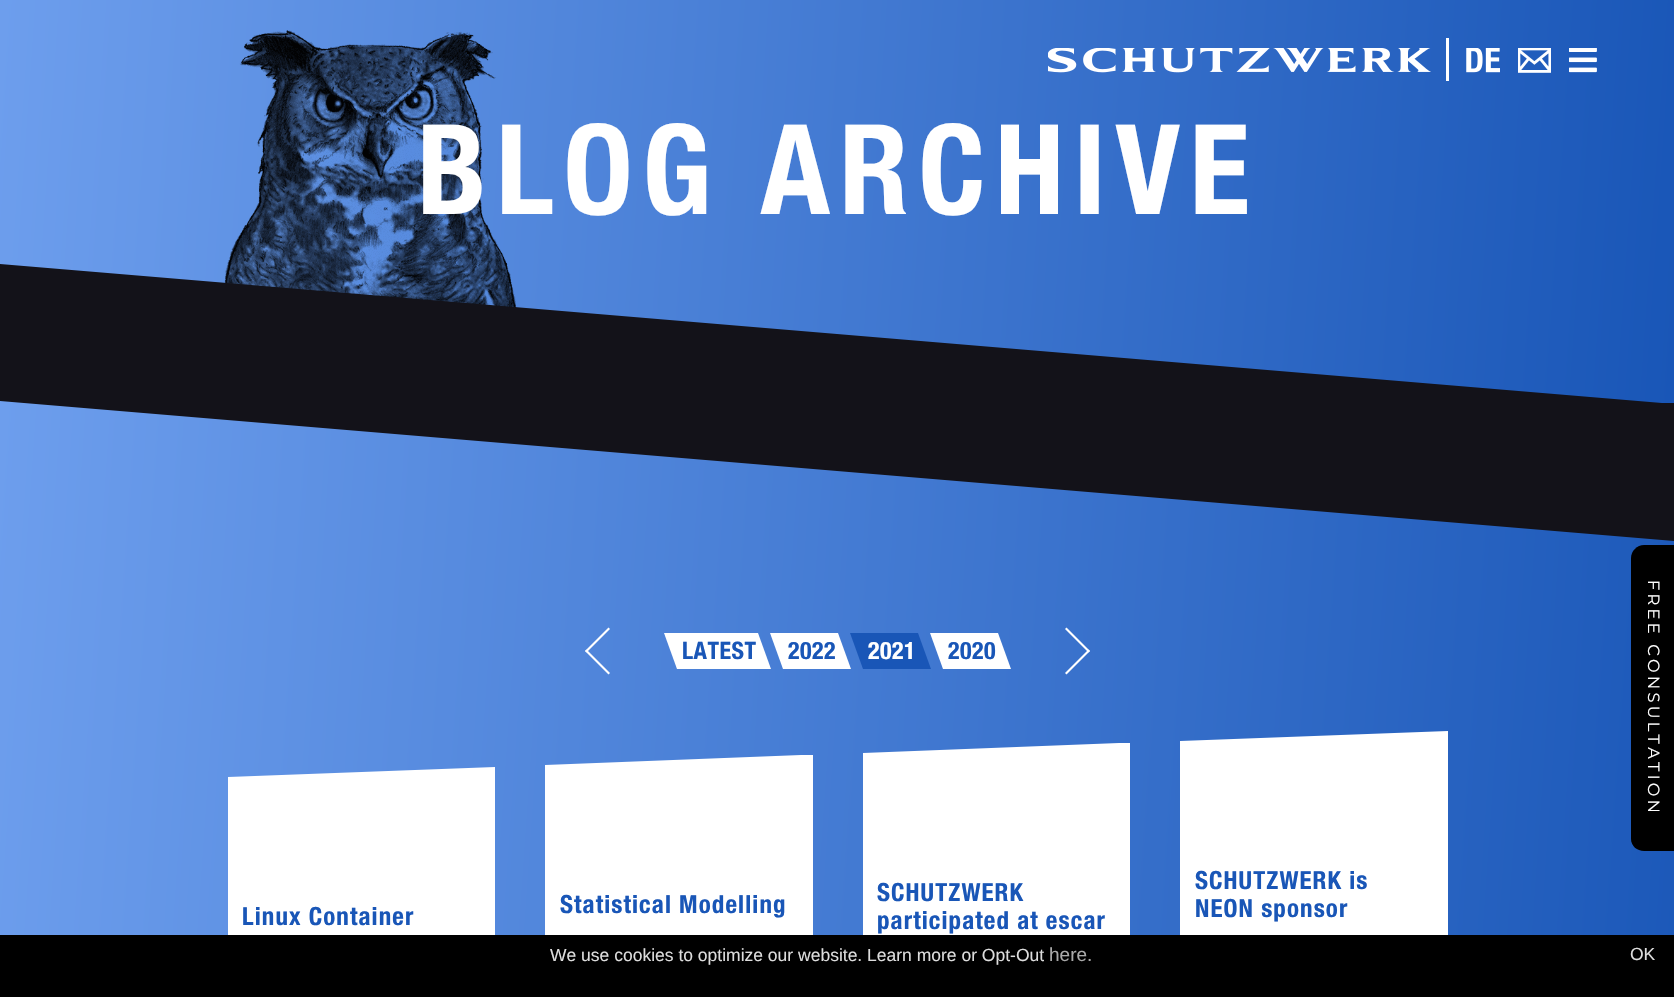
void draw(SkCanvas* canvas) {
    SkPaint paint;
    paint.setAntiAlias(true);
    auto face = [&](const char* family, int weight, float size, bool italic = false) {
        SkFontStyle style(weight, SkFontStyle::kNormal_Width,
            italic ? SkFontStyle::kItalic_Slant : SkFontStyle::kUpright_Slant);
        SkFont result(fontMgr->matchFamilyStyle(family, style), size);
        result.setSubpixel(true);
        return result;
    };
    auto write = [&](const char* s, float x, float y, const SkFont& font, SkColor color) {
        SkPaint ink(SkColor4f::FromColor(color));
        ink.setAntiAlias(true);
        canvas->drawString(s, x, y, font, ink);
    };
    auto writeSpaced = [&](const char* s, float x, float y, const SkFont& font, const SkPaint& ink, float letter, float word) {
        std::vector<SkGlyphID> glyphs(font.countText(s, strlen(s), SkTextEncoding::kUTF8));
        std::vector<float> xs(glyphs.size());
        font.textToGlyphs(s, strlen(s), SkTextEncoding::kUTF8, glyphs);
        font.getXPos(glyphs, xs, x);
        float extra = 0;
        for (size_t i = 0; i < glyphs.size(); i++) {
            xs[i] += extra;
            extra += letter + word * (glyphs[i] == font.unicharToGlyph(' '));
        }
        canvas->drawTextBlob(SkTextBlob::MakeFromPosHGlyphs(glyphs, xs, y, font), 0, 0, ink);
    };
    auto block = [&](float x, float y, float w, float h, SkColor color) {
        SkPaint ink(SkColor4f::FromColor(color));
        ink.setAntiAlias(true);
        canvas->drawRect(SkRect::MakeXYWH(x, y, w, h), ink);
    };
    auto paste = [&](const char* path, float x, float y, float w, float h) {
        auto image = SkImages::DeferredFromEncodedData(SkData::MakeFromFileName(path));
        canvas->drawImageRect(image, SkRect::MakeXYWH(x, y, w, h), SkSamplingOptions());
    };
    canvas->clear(SK_ColorWHITE);
    {
        const SkColor colors[] = {SkColorSetRGB(109, 158, 237), SkColorSetRGB(25, 86, 183)};
        const float stops[] = {0, 1};
        const SkPoint ends[] = {{-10, 143}, {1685, 261}};
        paint.setShader(SkGradientShader::MakeLinear(ends, colors, stops, 2, SkTileMode::kClamp));
        paint.setAlpha(255);
    }
    canvas->drawRect(SkRect::MakeXYWH(0, 0, 1674, 403), paint);
    paste("pic1.png", 224, 30, 293, 278);
    paste("pic2.png", 1048, 48, 383, 25);
    block(1446, 38, 3, 43, SK_ColorWHITE);
    paste("pic3.png", 1466, 48, 34, 25);
    paste("pic4.png", 1518, 48, 33, 25);
    paste("pic5.png", 1569, 48, 28, 25);
    auto kFont1 = face("Helvetica Neue", 700, 125);
    paint.setShader(nullptr);
    paint.setColor(SK_ColorWHITE);
    writeSpaced("BLOG ARCHIVE", 417, 214, kFont1, paint, 9.4f, 0);
    paint.setColor(SkColorSetRGB(19, 18, 25));
    canvas->drawPath(SkPathBuilder().moveTo(0, 264).lineTo(0, 404).lineTo(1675, 404).close().detach(), paint);
    canvas->drawPath(SkPathBuilder().moveTo(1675, 542).lineTo(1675, 403).lineTo(11, 403).close().detach(), paint);
    {
        const SkColor colors[] = {SkColorSetRGB(109, 158, 237), SkColorSetRGB(25, 86, 183)};
        const float stops[] = {0, 1};
        const SkPoint ends[] = {{-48, 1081}, {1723, 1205}};
        paint.setShader(SkGradientShader::MakeLinear(ends, colors, stops, 2, SkTileMode::kClamp));
        paint.setAlpha(255);
    }
    canvas->drawPath(SkPathBuilder().moveTo(0, 401).lineTo(0, 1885).lineTo(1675, 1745).lineTo(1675, 541).close().detach(), paint);
    paint.setShader(nullptr);
    paint.setColor(SK_ColorWHITE);
    canvas->drawPath(SkPathBuilder().moveTo(610, 629).lineTo(586.5f, 652.5f).lineTo(585, 651).lineTo(608.5f, 627.5f).close().detach(), paint);
    canvas->drawPath(SkPathBuilder().moveTo(586.5f, 649.5f).lineTo(610, 673).lineTo(608.5f, 674.5f).lineTo(585, 651).close().detach(), paint);
    canvas->drawPath(SkPathBuilder().moveTo(664, 633).lineTo(758, 633).lineTo(771, 669).lineTo(677, 669).close().detach(), paint);
    auto kFont2 = face("Helvetica Neue", 700, 24);
    paint.setColor(SkColorSetRGB(25, 86, 183));
    writeSpaced("LATEST", 682, 659, kFont2, paint, 0.5f, 0);
    paint.setColor(SK_ColorWHITE);
    canvas->drawPath(SkPathBuilder().moveTo(770, 633).lineTo(838, 633).lineTo(851, 669).lineTo(783, 669).close().detach(), paint);
    paint.setColor(SkColorSetRGB(25, 86, 183));
    writeSpaced("2022", 788, 659, kFont2, paint, 0.5f, 0);
    canvas->drawPath(SkPathBuilder().moveTo(850, 633).lineTo(918, 633).lineTo(931, 669).lineTo(863, 669).close().detach(), paint);
    paint.setColor(SK_ColorWHITE);
    writeSpaced("2021", 868, 659, kFont2, paint, 0.5f, 0);
    canvas->drawPath(SkPathBuilder().moveTo(930, 633).lineTo(998, 633).lineTo(1011, 669).lineTo(943, 669).close().detach(), paint);
    paint.setColor(SkColorSetRGB(25, 86, 183));
    writeSpaced("2020", 948, 659, kFont2, paint, 0.5f, 0);
    paint.setColor(SK_ColorWHITE);
    canvas->drawPath(SkPathBuilder().moveTo(1065, 673).lineTo(1088.5f, 649.5f).lineTo(1090, 651).lineTo(1066.5f, 674.5f).close().detach(), paint);
    canvas->drawPath(SkPathBuilder().moveTo(1088.5f, 652.5f).lineTo(1065, 629).lineTo(1066.5f, 627.5f).lineTo(1090, 651).close().detach(), paint);
    canvas->drawPath(SkPathBuilder().moveTo(495, 767).lineTo(228, 777).lineTo(228, 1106).lineTo(242, 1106).lineTo(495, 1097).close().detach(), paint);
    auto kFont3 = face("Helvetica Neue", 700, 25);
    paint.setColor(SkColorSetRGB(25, 86, 183));
    writeSpaced("Linux Container", 242, 925, kFont3, paint, 1.1f, 0);
    paint.setColor(SK_ColorWHITE);
    canvas->drawPath(SkPathBuilder().moveTo(545, 765).lineTo(545, 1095).lineTo(813, 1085).lineTo(813, 755).lineTo(801, 755).close().detach(), paint);
    paint.setColor(SkColorSetRGB(25, 86, 183));
    writeSpaced("Statistical Modelling", 560, 913, kFont3, paint, 1.1f, 0);
    paint.setColor(SK_ColorWHITE);
    canvas->drawPath(SkPathBuilder().moveTo(863, 753).lineTo(863, 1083).lineTo(1130, 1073).lineTo(1130, 743).lineTo(1119, 743).close().detach(), paint);
    paint.setColor(SkColorSetRGB(25, 86, 183));
    writeSpaced("SCHUTZWERK", 877, 901, kFont3, paint, 1.1f, 0);
    writeSpaced("participated at escar", 877, 929, kFont3, paint, 1.1f, 0);
    paint.setColor(SK_ColorWHITE);
    canvas->drawPath(SkPathBuilder().moveTo(1196, 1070).lineTo(1448, 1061).lineTo(1448, 731).lineTo(1180, 741).lineTo(1180, 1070).close().detach(), paint);
    paint.setColor(SkColorSetRGB(25, 86, 183));
    writeSpaced("SCHUTZWERK is", 1195, 889, kFont3, paint, 1.1f, 0);
    writeSpaced("NEON sponsor", 1195, 917, kFont3, paint, 1.1f, 0);
    paint.setColor(SK_ColorBLACK);
    canvas->drawPath(SkPathBuilder().moveTo(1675, 545).lineTo(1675, 851).lineTo(1644, 851).cubicTo(1637, 851, 1631, 846, 1631, 839).lineTo(1631, 558).cubicTo(1631, 551, 1637, 545, 1644, 545).close().detach(), paint);
    auto kFont4 = face("Montserrat", 400, 16.25f);
    paint.setColor(SK_ColorWHITE);
    canvas->save();
    canvas->rotate(90, 1648, 580);
    writeSpaced("FREE CONSULTATION", 1648, 580, kFont4, paint, 3.25f, 0);
    canvas->restore();
    block(0, 935, 1674, 62, SK_ColorBLACK);
    auto kFont5 = face("Liberation Sans", 400, 17.5f);
    write("We use cookies to optimize our website. Learn more or Opt-Out", 550, 961, kFont5, SkColorSetRGB(221, 221, 221));
    auto kFont6 = face("Liberation Sans", 400, 19);
    write("here.", 1049, 961, kFont6, SkColorSetRGB(170, 170, 170));
    write("OK", 1630, 960, kFont5, SkColorSetRGB(221, 221, 221));
}
